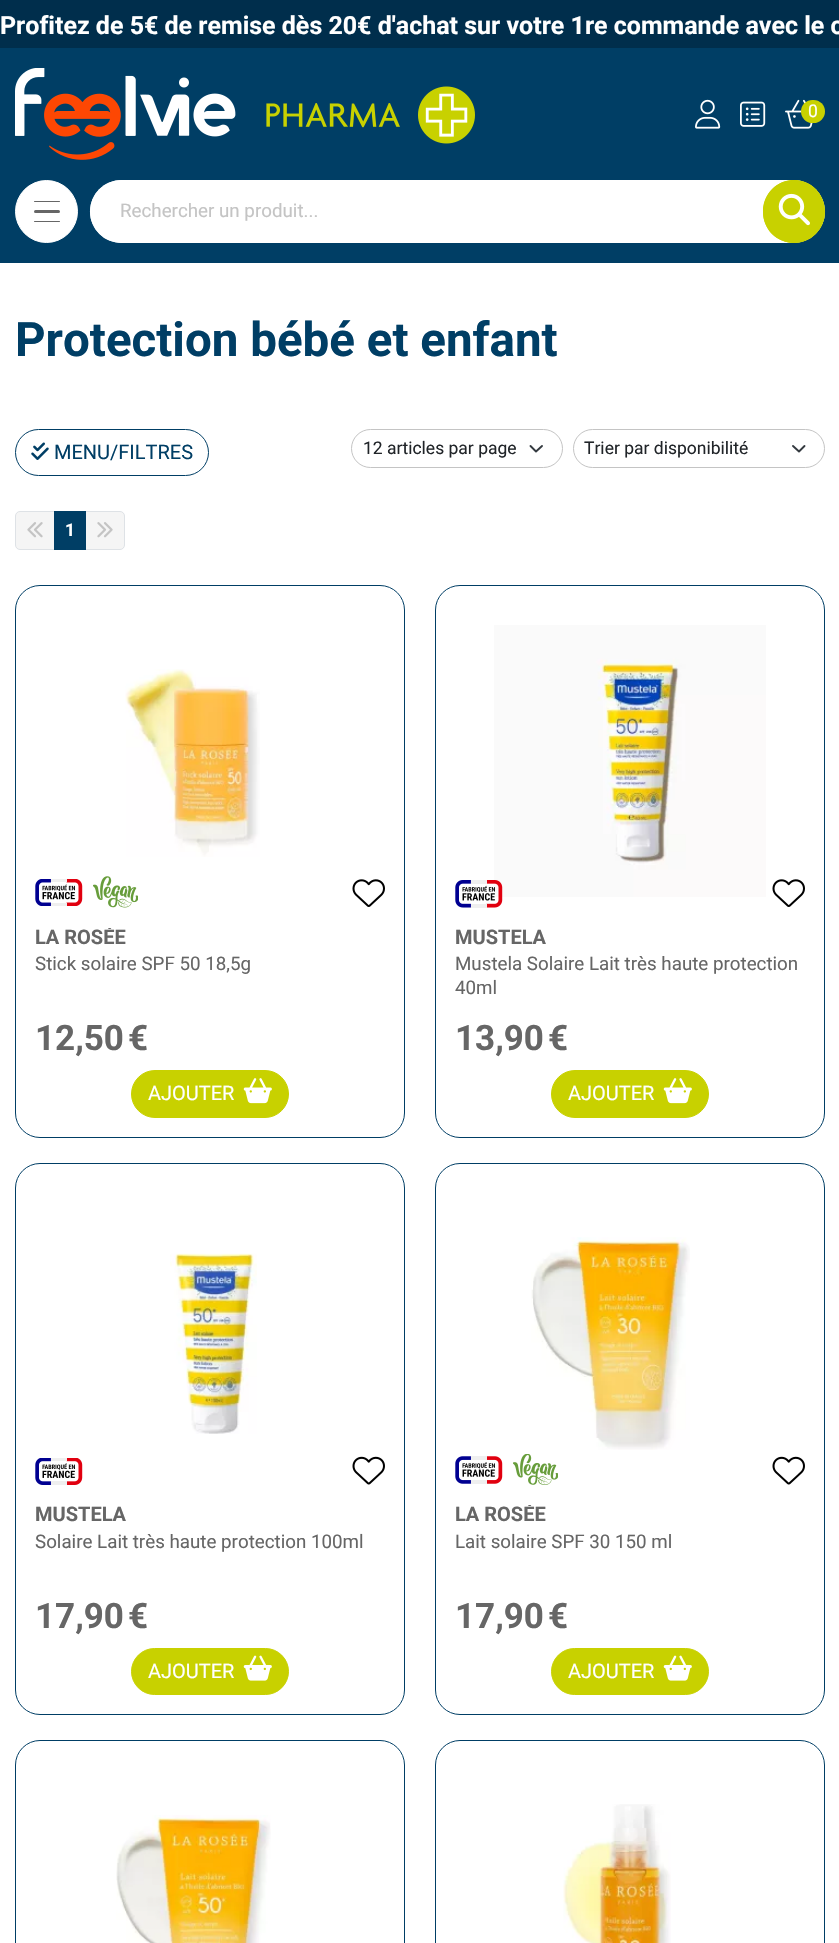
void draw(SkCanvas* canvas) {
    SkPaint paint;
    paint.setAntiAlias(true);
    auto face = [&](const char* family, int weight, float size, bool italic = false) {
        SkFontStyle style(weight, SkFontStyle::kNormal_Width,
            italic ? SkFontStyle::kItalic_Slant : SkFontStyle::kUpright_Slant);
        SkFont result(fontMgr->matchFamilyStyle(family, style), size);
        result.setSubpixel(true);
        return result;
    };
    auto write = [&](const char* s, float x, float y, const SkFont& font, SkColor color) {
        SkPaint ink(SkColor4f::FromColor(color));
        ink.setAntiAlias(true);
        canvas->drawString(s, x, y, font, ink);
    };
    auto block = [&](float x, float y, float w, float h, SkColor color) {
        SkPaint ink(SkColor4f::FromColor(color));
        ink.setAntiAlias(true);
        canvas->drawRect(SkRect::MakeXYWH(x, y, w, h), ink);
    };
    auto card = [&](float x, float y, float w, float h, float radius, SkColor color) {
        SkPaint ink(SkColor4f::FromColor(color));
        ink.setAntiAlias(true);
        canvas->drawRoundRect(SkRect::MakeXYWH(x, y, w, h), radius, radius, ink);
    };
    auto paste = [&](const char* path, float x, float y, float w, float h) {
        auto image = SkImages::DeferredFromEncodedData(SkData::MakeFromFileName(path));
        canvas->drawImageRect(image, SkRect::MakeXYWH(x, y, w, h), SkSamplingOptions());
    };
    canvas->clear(SK_ColorWHITE);
    block(0, 48, 839, 215, SkColorSetRGB(0, 62, 101));
    block(0, 0, 839, 48, SkColorSetRGB(0, 46, 76));
    auto kFont1 = face("Roboto", 700, 25);
    write("Profitez de 5€ de remise dès 20€ d'achat sur votre 1re commande avec le c", 0, 34, kFont1, SK_ColorWHITE);
    paste("pic1.png", 15, 68, 460, 92);
    paste("pic2.png", 695, 99, 26, 30);
    paste("pic3.png", 740, 101, 26, 26);
    paste("pic4.png", 785, 99, 28, 30);
    card(801, 100, 24, 23, 11.5f, SkColorSetRGB(200, 209, 0));
    auto kFont2 = face("Roboto", 400, 17.5f);
    write("0", 808, 117, kFont2, SK_ColorWHITE);
    paint.setColor(SK_ColorWHITE);
    canvas->drawCircle(46.5f, 211.5f, 31, paint);
    paint.setStyle(SkPaint::kStroke_Style);
    paint.setStrokeWidth(1);
    canvas->drawCircle(46.5f, 211.5f, 31, paint);
    card(34, 201, 26, 1, 0.5f, SkColorSetRGB(102, 102, 102));
    card(34, 210, 26, 3, 1.5f, SkColorSetRGB(102, 102, 102));
    card(34, 221, 26, 1, 0.5f, SkColorSetRGB(102, 102, 102));
    card(90, 180, 735, 63, 31.5f, SK_ColorWHITE);
    paint.setStyle(SkPaint::kFill_Style);
    canvas->drawPath(SkPathBuilder().moveTo(121.5f, 180).lineTo(764, 180).lineTo(764, 243).lineTo(121.5f, 243).cubicTo(104, 243, 90, 229, 90, 211.5f).cubicTo(90, 194, 104, 180, 121.5f, 180).close().detach(), paint);
    auto kFont3 = face("Roboto", 400, 18.75f);
    write("Rechercher un produit...", 120, 217, kFont3, SkColorSetRGB(196, 196, 196));
    paint.setColor(SkColorSetRGB(200, 209, 0));
    canvas->drawPath(SkPathBuilder().moveTo(794, 180).lineTo(793.5f, 180).cubicTo(811, 180, 825, 194, 825, 211.5f).cubicTo(825, 229, 811, 243, 793.5f, 243).lineTo(794, 243).cubicTo(777, 243, 763, 229, 763, 212).lineTo(763, 211).cubicTo(763, 194, 777, 180, 794, 180).close().detach(), paint);
    canvas->drawPath(SkPathBuilder(SkPathFillType::kEvenOdd).moveTo(794, 180).cubicTo(824, 180, 837, 220, 811, 238).cubicTo(806, 241, 800, 243, 794, 243).cubicTo(788, 243, 782, 241, 777, 238).cubicTo(752, 221, 763, 180, 794, 180).close().moveTo(794, 181).cubicTo(788, 181, 782, 183, 777, 186).cubicTo(753, 203, 764, 242, 794, 242).cubicTo(800, 242, 806, 240, 811, 237).cubicTo(835, 220, 824, 181, 794, 181).close().detach(), paint);
    paste("pic5.png", 778, 193, 32, 33);
    auto kFont4 = face("Roboto", 700, 47.5f);
    write("Protection bébé et enfant", 15, 356, kFont4, SkColorSetRGB(0, 62, 101));
    paint.setStyle(SkPaint::kStroke_Style);
    paint.setColor(SkColorSetRGB(0, 62, 101));
    canvas->drawRoundRect(SkRect::MakeXYWH(15.5f, 429.5f, 193, 46), 23, 23, paint);
    paste("pic6.png", 31, 442, 18, 18);
    auto kFont5 = face("Roboto", 400, 20);
    write("MENU/FILTRES", 54, 459, kFont5, SkColorSetRGB(0, 62, 101));
    paint.setStrokeWidth(1.9f);
    paint.setStrokeCap(SkPaint::kRound_Cap);
    paint.setStrokeJoin(SkPaint::kRound_Join);
    paint.setColor(SkColorSetRGB(52, 58, 64));
    canvas->drawPath(SkPathBuilder().moveTo(530.5f, 446).lineTo(536, 451.5f).lineTo(542, 446).detach(), paint);
    paint.setStrokeWidth(1);
    paint.setStrokeCap(SkPaint::kButt_Cap);
    paint.setStrokeJoin(SkPaint::kMiter_Join);
    paint.setColor(SkColorSetRGB(196, 196, 196));
    canvas->drawRoundRect(SkRect::MakeXYWH(351.5f, 429.5f, 211, 38), 19, 19, paint);
    write("12 articles par page", 363, 454, kFont2, SkColorSetRGB(33, 37, 41));
    paint.setStrokeWidth(1.9f);
    paint.setStrokeCap(SkPaint::kRound_Cap);
    paint.setStrokeJoin(SkPaint::kRound_Join);
    paint.setColor(SkColorSetRGB(52, 58, 64));
    canvas->drawPath(SkPathBuilder().moveTo(793, 446).lineTo(799, 451.5f).lineTo(804.5f, 446).detach(), paint);
    paint.setStrokeWidth(1);
    paint.setStrokeCap(SkPaint::kButt_Cap);
    paint.setStrokeJoin(SkPaint::kMiter_Join);
    paint.setColor(SkColorSetRGB(196, 196, 196));
    canvas->drawRoundRect(SkRect::MakeXYWH(573.5f, 429.5f, 251, 38), 19, 19, paint);
    write("Trier par disponibilité", 584, 454, kFont2, SkColorSetRGB(33, 37, 41));
    paint.setStyle(SkPaint::kFill_Style);
    paint.setColor(SkColorSetRGB(245, 245, 245));
    canvas->drawPath(SkPathBuilder().moveTo(20, 511.5f).lineTo(54.5f, 511.5f).lineTo(54.5f, 549.5f).lineTo(20, 549.5f).cubicTo(17.5f, 549.5f, 15.5f, 547.5f, 15.5f, 545).lineTo(15.5f, 516).cubicTo(15.5f, 513.5f, 17.5f, 511.5f, 20, 511.5f).close().detach(), paint);
    paint.setStyle(SkPaint::kStroke_Style);
    paint.setColor(SkColorSetRGB(222, 226, 230));
    canvas->drawPath(SkPathBuilder().moveTo(20, 511.5f).lineTo(54.5f, 511.5f).lineTo(54.5f, 549.5f).lineTo(20, 549.5f).cubicTo(17.5f, 549.5f, 15.5f, 547.5f, 15.5f, 545).lineTo(15.5f, 516).cubicTo(15.5f, 513.5f, 17.5f, 511.5f, 20, 511.5f).close().detach(), paint);
    paste("pic7.png", 27, 522, 16, 16);
    paint.setStyle(SkPaint::kFill_Style);
    paint.setColor(SkColorSetRGB(245, 245, 245));
    canvas->drawPath(SkPathBuilder().moveTo(85.5f, 511.5f).lineTo(120, 511.5f).cubicTo(122.5f, 511.5f, 124.5f, 513.5f, 124.5f, 516).lineTo(124.5f, 545).cubicTo(124.5f, 547.5f, 122.5f, 549.5f, 120, 549.5f).lineTo(85.5f, 549.5f).close().detach(), paint);
    paint.setStyle(SkPaint::kStroke_Style);
    paint.setColor(SkColorSetRGB(222, 226, 230));
    canvas->drawPath(SkPathBuilder().moveTo(85.5f, 511.5f).lineTo(120, 511.5f).cubicTo(122.5f, 511.5f, 124.5f, 513.5f, 124.5f, 516).lineTo(124.5f, 545).cubicTo(124.5f, 547.5f, 122.5f, 549.5f, 120, 549.5f).lineTo(85.5f, 549.5f).close().detach(), paint);
    block(54, 511, 32, 39, SkColorSetRGB(0, 62, 101));
    auto kFont6 = face("Roboto", 700, 17.5f);
    write("1", 65, 536, kFont6, SK_ColorWHITE);
    paste("pic8.png", 97, 522, 16, 16);
    paint.setColor(SkColorSetRGB(0, 62, 101));
    canvas->drawRoundRect(SkRect::MakeXYWH(15.5f, 585.5f, 389, 552), 24.5f, 24.5f, paint);
    paste("pic9.png", 125, 669, 135, 188);
    paste("pic10.png", 35, 879, 48, 27);
    paste("pic11.png", 93, 876, 45, 32);
    paste("pic12.png", 352, 879, 33, 28);
    canvas->save();
    canvas->clipRect(SkRect::MakeXYWH(35, 928, 350, 20));
    auto kFont7 = face("Roboto", 700, 20);
    write("LA ROSÉE", 35, 944, kFont7, SkColorSetRGB(102, 102, 102));
    canvas->restore();
    write("Stick solaire SPF 50 18,5g", 35, 970, kFont3, SkColorSetRGB(102, 102, 102));
    auto kFont8 = face("Roboto", 700, 35);
    write("12,50", 35, 1050, kFont8, SkColorSetRGB(102, 102, 102));
    write("€", 128, 1050, kFont8, SkColorSetRGB(102, 102, 102));
    paint.setStyle(SkPaint::kFill_Style);
    paint.setColor(SkColorSetRGB(200, 209, 0));
    canvas->drawRoundRect(SkRect::MakeXYWH(131.5f, 1070.5f, 157, 47), 23.5f, 23.5f, paint);
    paint.setStyle(SkPaint::kStroke_Style);
    canvas->drawRoundRect(SkRect::MakeXYWH(131.5f, 1070.5f, 157, 47), 23.5f, 23.5f, paint);
    write("AJOUTER", 148, 1100, kFont5, SK_ColorWHITE);
    paste("pic13.png", 243, 1078, 29, 26);
    paint.setColor(SkColorSetRGB(0, 62, 101));
    canvas->drawRoundRect(SkRect::MakeXYWH(435.5f, 585.5f, 389, 552), 24.5f, 24.5f, paint);
    paste("pic15.png", 494, 625, 272, 272);
    paste("pic14.png", 455, 880, 48, 28);
    paste("pic12.png", 772, 879, 33, 28);
    write("MUSTELA", 455, 944, kFont7, SkColorSetRGB(102, 102, 102));
    write("Mustela Solaire Lait très haute protection", 455, 970, kFont3, SkColorSetRGB(102, 102, 102));
    write("40ml", 455, 994, kFont3, SkColorSetRGB(102, 102, 102));
    write("13,90", 455, 1050, kFont8, SkColorSetRGB(102, 102, 102));
    write("€", 548, 1050, kFont8, SkColorSetRGB(102, 102, 102));
    paint.setStyle(SkPaint::kFill_Style);
    paint.setColor(SkColorSetRGB(200, 209, 0));
    canvas->drawRoundRect(SkRect::MakeXYWH(551.5f, 1070.5f, 157, 47), 23.5f, 23.5f, paint);
    paint.setStyle(SkPaint::kStroke_Style);
    canvas->drawRoundRect(SkRect::MakeXYWH(551.5f, 1070.5f, 157, 47), 23.5f, 23.5f, paint);
    write("AJOUTER", 568, 1100, kFont5, SK_ColorWHITE);
    paste("pic13.png", 663, 1078, 29, 26);
    paint.setColor(SkColorSetRGB(0, 62, 101));
    canvas->drawRoundRect(SkRect::MakeXYWH(15.5f, 1163.5f, 389, 551), 24.5f, 24.5f, paint);
    paste("pic16.png", 170, 1253, 87, 181);
    paste("pic17.png", 35, 1458, 48, 27);
    paste("pic18.png", 352, 1456, 33, 29);
    write("MUSTELA", 35, 1521, kFont7, SkColorSetRGB(102, 102, 102));
    write("Solaire Lait très haute protection 100ml", 35, 1548, kFont3, SkColorSetRGB(102, 102, 102));
    write("17,90", 35, 1628, kFont8, SkColorSetRGB(102, 102, 102));
    write("€", 128, 1628, kFont8, SkColorSetRGB(102, 102, 102));
    paint.setStyle(SkPaint::kFill_Style);
    paint.setColor(SkColorSetRGB(200, 209, 0));
    canvas->drawRoundRect(SkRect::MakeXYWH(131.5f, 1648.5f, 157, 46), 23, 23, paint);
    paint.setStyle(SkPaint::kStroke_Style);
    canvas->drawRoundRect(SkRect::MakeXYWH(131.5f, 1648.5f, 157, 46), 23, 23, paint);
    write("AJOUTER", 148, 1678, kFont5, SK_ColorWHITE);
    paste("pic19.png", 243, 1655, 29, 26);
    paint.setColor(SkColorSetRGB(0, 62, 101));
    canvas->drawRoundRect(SkRect::MakeXYWH(435.5f, 1163.5f, 389, 551), 24.5f, 24.5f, paint);
    paste("pic20.png", 531, 1237, 159, 213);
    paste("pic21.png", 455, 1456, 48, 28);
    paste("pic22.png", 513, 1454, 45, 31);
    paste("pic18.png", 772, 1456, 33, 29);
    canvas->save();
    canvas->clipRect(SkRect::MakeXYWH(455, 1505, 350, 20));
    write("LA ROSÉE", 455, 1521, kFont7, SkColorSetRGB(102, 102, 102));
    canvas->restore();
    write("Lait solaire SPF 30 150 ml", 455, 1548, kFont3, SkColorSetRGB(102, 102, 102));
    write("17,90", 455, 1628, kFont8, SkColorSetRGB(102, 102, 102));
    write("€", 548, 1628, kFont8, SkColorSetRGB(102, 102, 102));
    paint.setStyle(SkPaint::kFill_Style);
    paint.setColor(SkColorSetRGB(200, 209, 0));
    canvas->drawRoundRect(SkRect::MakeXYWH(551.5f, 1648.5f, 157, 46), 23, 23, paint);
    paint.setStyle(SkPaint::kStroke_Style);
    canvas->drawRoundRect(SkRect::MakeXYWH(551.5f, 1648.5f, 157, 46), 23, 23, paint);
    write("AJOUTER", 568, 1678, kFont5, SK_ColorWHITE);
    paste("pic19.png", 663, 1655, 29, 26);
    paint.setColor(SkColorSetRGB(0, 62, 101));
    canvas->drawRoundRect(SkRect::MakeXYWH(15.5f, 1740.5f, 389, 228), 24.5f, 24.5f, paint);
    paste("pic23.png", 116, 1815, 155, 128);
    canvas->drawRoundRect(SkRect::MakeXYWH(435.5f, 1740.5f, 389, 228), 24.5f, 24.5f, paint);
    paste("pic24.png", 563, 1804, 108, 139);
}
